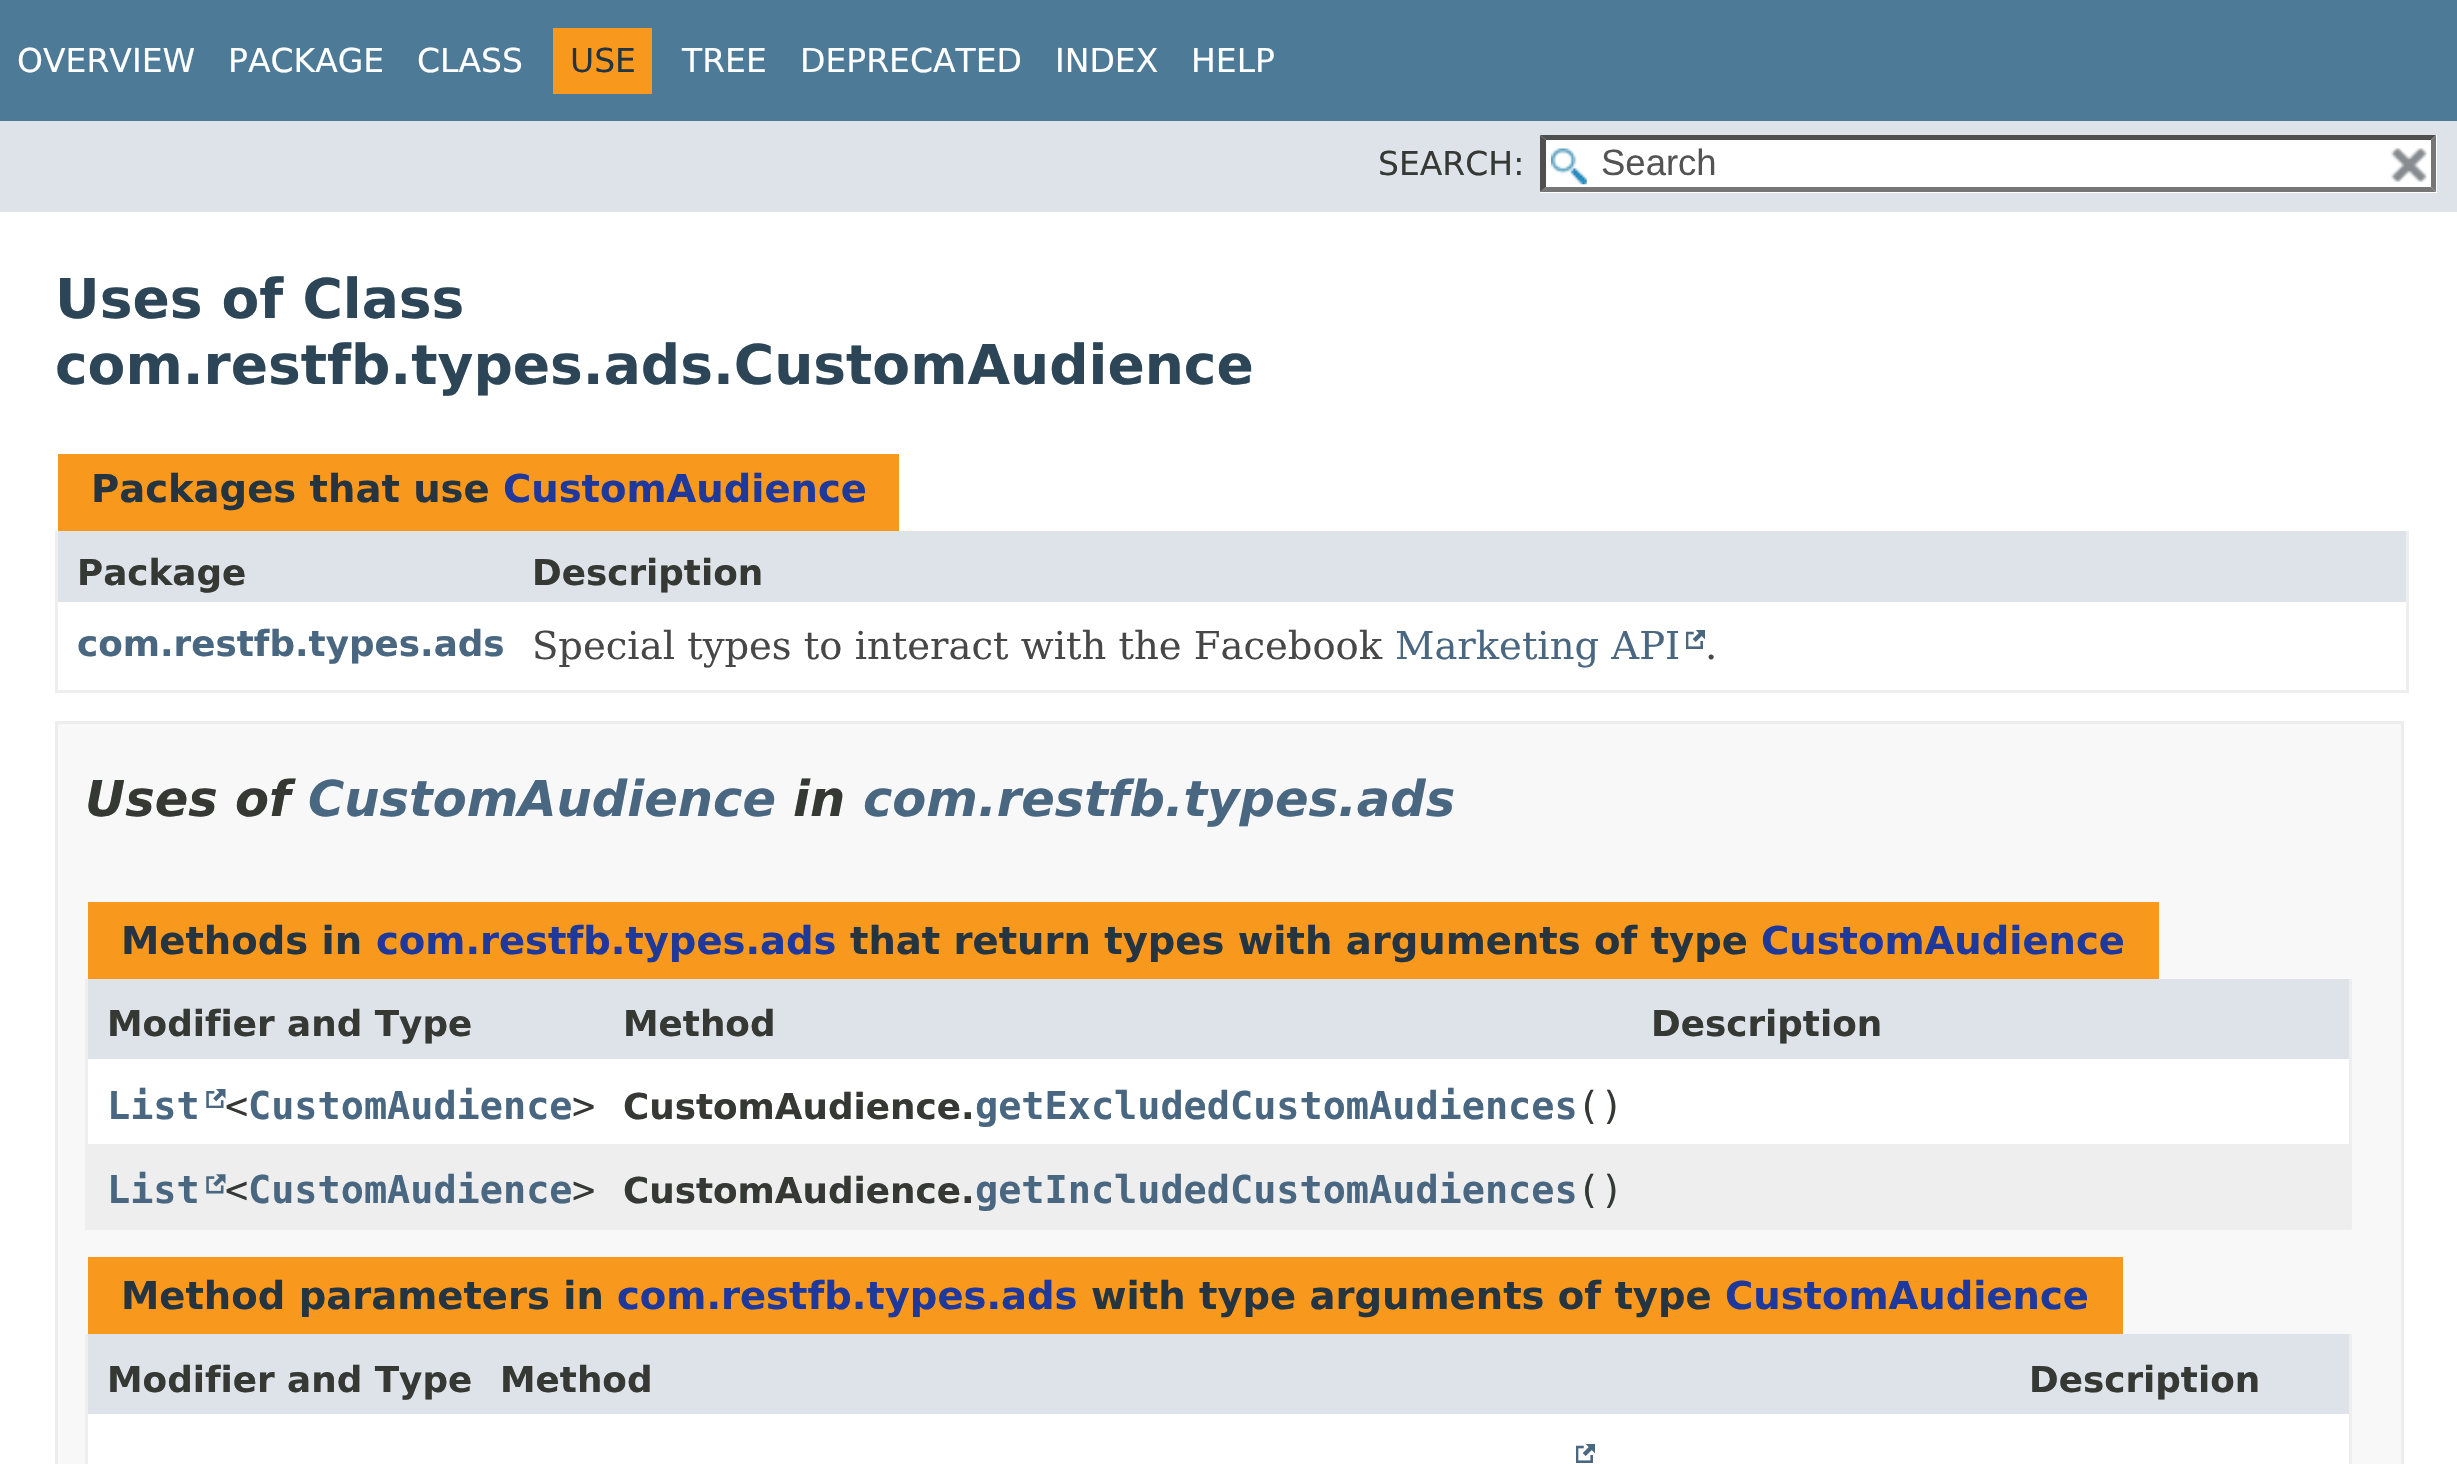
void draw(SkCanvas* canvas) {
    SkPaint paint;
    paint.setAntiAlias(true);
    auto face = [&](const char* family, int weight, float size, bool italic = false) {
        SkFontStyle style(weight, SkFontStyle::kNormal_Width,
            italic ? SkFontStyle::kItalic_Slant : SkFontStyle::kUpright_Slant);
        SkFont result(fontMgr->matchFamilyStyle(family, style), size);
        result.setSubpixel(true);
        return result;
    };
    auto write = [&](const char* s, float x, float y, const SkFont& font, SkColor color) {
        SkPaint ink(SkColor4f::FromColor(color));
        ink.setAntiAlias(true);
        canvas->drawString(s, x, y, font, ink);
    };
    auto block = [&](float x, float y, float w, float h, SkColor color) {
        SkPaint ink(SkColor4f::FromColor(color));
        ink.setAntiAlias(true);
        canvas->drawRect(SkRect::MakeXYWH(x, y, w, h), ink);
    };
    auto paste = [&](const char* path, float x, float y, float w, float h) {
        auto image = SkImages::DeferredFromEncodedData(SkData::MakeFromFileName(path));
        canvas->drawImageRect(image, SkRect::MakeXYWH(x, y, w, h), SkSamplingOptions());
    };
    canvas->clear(SK_ColorWHITE);
    block(0, 0, 2457, 121, SkColorSetRGB(77, 122, 151));
    auto kFont1 = face("DejaVu Sans", 400, 33);
    write("OVERVIEW", 17, 72, kFont1, SK_ColorWHITE);
    write("PACKAGE", 228, 72, kFont1, SK_ColorWHITE);
    write("CLASS", 417, 72, kFont1, SK_ColorWHITE);
    block(553, 28, 99, 66, SkColorSetRGB(248, 152, 29));
    write("USE", 570, 72, kFont1, SkColorSetRGB(37, 52, 65));
    write("TREE", 682, 72, kFont1, SK_ColorWHITE);
    write("DEPRECATED", 800, 72, kFont1, SK_ColorWHITE);
    write("INDEX", 1055, 72, kFont1, SK_ColorWHITE);
    write("HELP", 1191, 72, kFont1, SK_ColorWHITE);
    block(0, 121, 2457, 91, SkColorSetRGB(222, 227, 233));
    write("SEARCH:", 1378, 175, kFont1, SkColorSetRGB(53, 56, 51));
    block(1540, 135, 897, 58, SK_ColorWHITE);
    paste("pic1.png", 1551, 148, 36, 37);
    paint.setColor(SkColorSetRGB(79, 79, 79));
    canvas->drawPath(SkPathBuilder().moveTo(1540, 135).lineTo(2436, 135).lineTo(2431, 140).lineTo(1546, 140).close().detach(), paint);
    paint.setColor(SkColorSetRGB(118, 118, 118));
    canvas->drawPath(SkPathBuilder().moveTo(2436, 135).lineTo(2436, 192).lineTo(2431, 187).lineTo(2431, 140).close().detach(), paint);
    canvas->drawPath(SkPathBuilder().moveTo(2436, 192).lineTo(1540, 192).lineTo(1546, 187).lineTo(2431, 187).close().detach(), paint);
    paint.setColor(SkColorSetRGB(79, 79, 79));
    canvas->drawPath(SkPathBuilder().moveTo(1540, 192).lineTo(1540, 135).lineTo(1546, 140).lineTo(1546, 187).close().detach(), paint);
    auto kFont2 = face("Liberation Sans", 400, 36.5f);
    write("Search", 1601, 175, kFont2, SkColorSetRGB(84, 84, 84));
    paste("pic2.png", 2390, 148, 37, 35);
    auto kFont3 = face("DejaVu Sans", 700, 55);
    write("Uses of Class", 55, 318, kFont3, SkColorSetRGB(44, 69, 87));
    write("com.restfb.types.ads.CustomAudience", 55, 384, kFont3, SkColorSetRGB(44, 69, 87));
    block(58, 454, 841, 77, SkColorSetRGB(248, 152, 29));
    auto kFont4 = face("DejaVu Sans", 700, 38.5f);
    write("Packages that use", 91, 502, kFont4, SkColorSetRGB(37, 52, 65));
    write("CustomAudience", 503, 502, kFont4, SkColorSetRGB(31, 56, 156));
    block(2406, 531, 3, 162, SkColorSetRGB(238, 238, 238));
    block(55, 690, 2354, 3, SkColorSetRGB(238, 238, 238));
    block(55, 531, 3, 162, SkColorSetRGB(238, 238, 238));
    block(58, 531, 2348, 71, SkColorSetRGB(222, 227, 233));
    auto kFont5 = face("DejaVu Sans", 700, 35.75f);
    write("Package", 77, 585, kFont5, SkColorSetRGB(53, 56, 51));
    write("Description", 532, 585, kFont5, SkColorSetRGB(53, 56, 51));
    write("com.restfb.types.ads", 77, 656, kFont5, SkColorSetRGB(74, 103, 130));
    auto kFont6 = face("DejaVu Serif", 400, 38.5f);
    write("Special types to interact with the Facebook", 532, 659, kFont6, SkColorSetRGB(71, 71, 71));
    write("Marketing API", 1395, 659, kFont6, SkColorSetRGB(74, 103, 130));
    paste("pic3.png", 1686, 630, 19, 19);
    write(".", 1705, 659, kFont6, SkColorSetRGB(71, 71, 71));
    paint.setColor(SkColorSetRGB(248, 248, 248));
    canvas->drawRect(SkRect::MakeXYWH(56.5f, 722.5f, 2346, 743), paint);
    paint.setStyle(SkPaint::kStroke_Style);
    paint.setStrokeWidth(3);
    paint.setColor(SkColorSetRGB(237, 237, 237));
    canvas->drawRect(SkRect::MakeXYWH(56.5f, 722.5f, 2346, 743), paint);
    auto kFont7 = face("DejaVu Sans", 700, 49.5f, true);
    write("Uses of", 85, 816, kFont7, SkColorSetRGB(53, 56, 51));
    write("CustomAudience", 308, 816, kFont7, SkColorSetRGB(74, 103, 130));
    write("in", 793, 816, kFont7, SkColorSetRGB(53, 56, 51));
    write("com.restfb.types.ads", 863, 816, kFont7, SkColorSetRGB(74, 103, 130));
    block(88, 902, 2071, 77, SkColorSetRGB(248, 152, 29));
    write("Methods in", 121, 954, kFont4, SkColorSetRGB(37, 52, 65));
    write("com.restfb.types.ads", 376, 954, kFont4, SkColorSetRGB(31, 56, 156));
    write("that return types with arguments of type", 850, 954, kFont4, SkColorSetRGB(37, 52, 65));
    write("CustomAudience", 1761, 954, kFont4, SkColorSetRGB(31, 56, 156));
    block(2349, 979, 3, 250, SkColorSetRGB(238, 238, 238));
    block(85, 1227, 2266, 3, SkColorSetRGB(238, 238, 238));
    block(85, 979, 3, 250, SkColorSetRGB(238, 238, 238));
    block(88, 979, 1543, 80, SkColorSetRGB(222, 227, 233));
    write("Modifier and Type", 107, 1036, kFont5, SkColorSetRGB(53, 56, 51));
    write("Method", 623, 1036, kFont5, SkColorSetRGB(53, 56, 51));
    block(1631, 979, 718, 80, SkColorSetRGB(222, 227, 233));
    write("Description", 1651, 1036, kFont5, SkColorSetRGB(53, 56, 51));
    block(88, 1059, 1543, 85, SK_ColorWHITE);
    auto kFont8 = face("DejaVu Sans Mono", 700, 38.5f);
    write("List", 107, 1119, kFont8, SkColorSetRGB(74, 103, 130));
    paste("pic4.png", 206, 1089, 20, 19);
    auto kFont9 = face("DejaVu Sans Mono", 400, 38.5f);
    write("<", 225, 1119, kFont9, SkColorSetRGB(53, 56, 51));
    write("CustomAudience", 248, 1119, kFont8, SkColorSetRGB(74, 103, 130));
    write(">", 572, 1119, kFont9, SkColorSetRGB(53, 56, 51));
    write("CustomAudience.", 623, 1119, kFont5, SkColorSetRGB(53, 56, 51));
    write("getExcludedCustomAudiences", 975, 1119, kFont8, SkColorSetRGB(74, 103, 130));
    write("()", 1577, 1119, kFont9, SkColorSetRGB(53, 56, 51));
    block(1631, 1059, 718, 85, SK_ColorWHITE);
    block(88, 1144, 1543, 83, SkColorSetRGB(238, 238, 239));
    write("List", 107, 1203, kFont8, SkColorSetRGB(74, 103, 130));
    paste("pic5.png", 206, 1174, 20, 20);
    write("<", 225, 1203, kFont9, SkColorSetRGB(53, 56, 51));
    write("CustomAudience", 248, 1203, kFont8, SkColorSetRGB(74, 103, 130));
    write(">", 572, 1203, kFont9, SkColorSetRGB(53, 56, 51));
    write("CustomAudience.", 623, 1203, kFont5, SkColorSetRGB(53, 56, 51));
    write("getIncludedCustomAudiences", 975, 1203, kFont8, SkColorSetRGB(74, 103, 130));
    write("()", 1577, 1203, kFont9, SkColorSetRGB(53, 56, 51));
    block(1631, 1144, 718, 83, SkColorSetRGB(238, 238, 239));
    block(88, 1257, 2035, 77, SkColorSetRGB(248, 152, 29));
    write("Method parameters in", 121, 1309, kFont4, SkColorSetRGB(37, 52, 65));
    write("com.restfb.types.ads", 617, 1309, kFont4, SkColorSetRGB(31, 56, 156));
    write("with type arguments of type", 1091, 1309, kFont4, SkColorSetRGB(37, 52, 65));
    write("CustomAudience", 1725, 1309, kFont4, SkColorSetRGB(31, 56, 156));
    block(2349, 1334, 3, 130, SkColorSetRGB(238, 238, 238));
    block(85, 1334, 3, 130, SkColorSetRGB(238, 238, 238));
    block(88, 1334, 1922, 80, SkColorSetRGB(222, 227, 233));
    write("Modifier and Type", 107, 1392, kFont5, SkColorSetRGB(53, 56, 51));
    write("Method", 500, 1392, kFont5, SkColorSetRGB(53, 56, 51));
    block(2010, 1334, 339, 80, SkColorSetRGB(222, 227, 233));
    write("Description", 2029, 1392, kFont5, SkColorSetRGB(53, 56, 51));
    block(88, 1414, 1922, 50, SK_ColorWHITE);
    block(2010, 1414, 339, 50, SK_ColorWHITE);
    paste("pic3.png", 1576, 1444, 19, 19);
}
